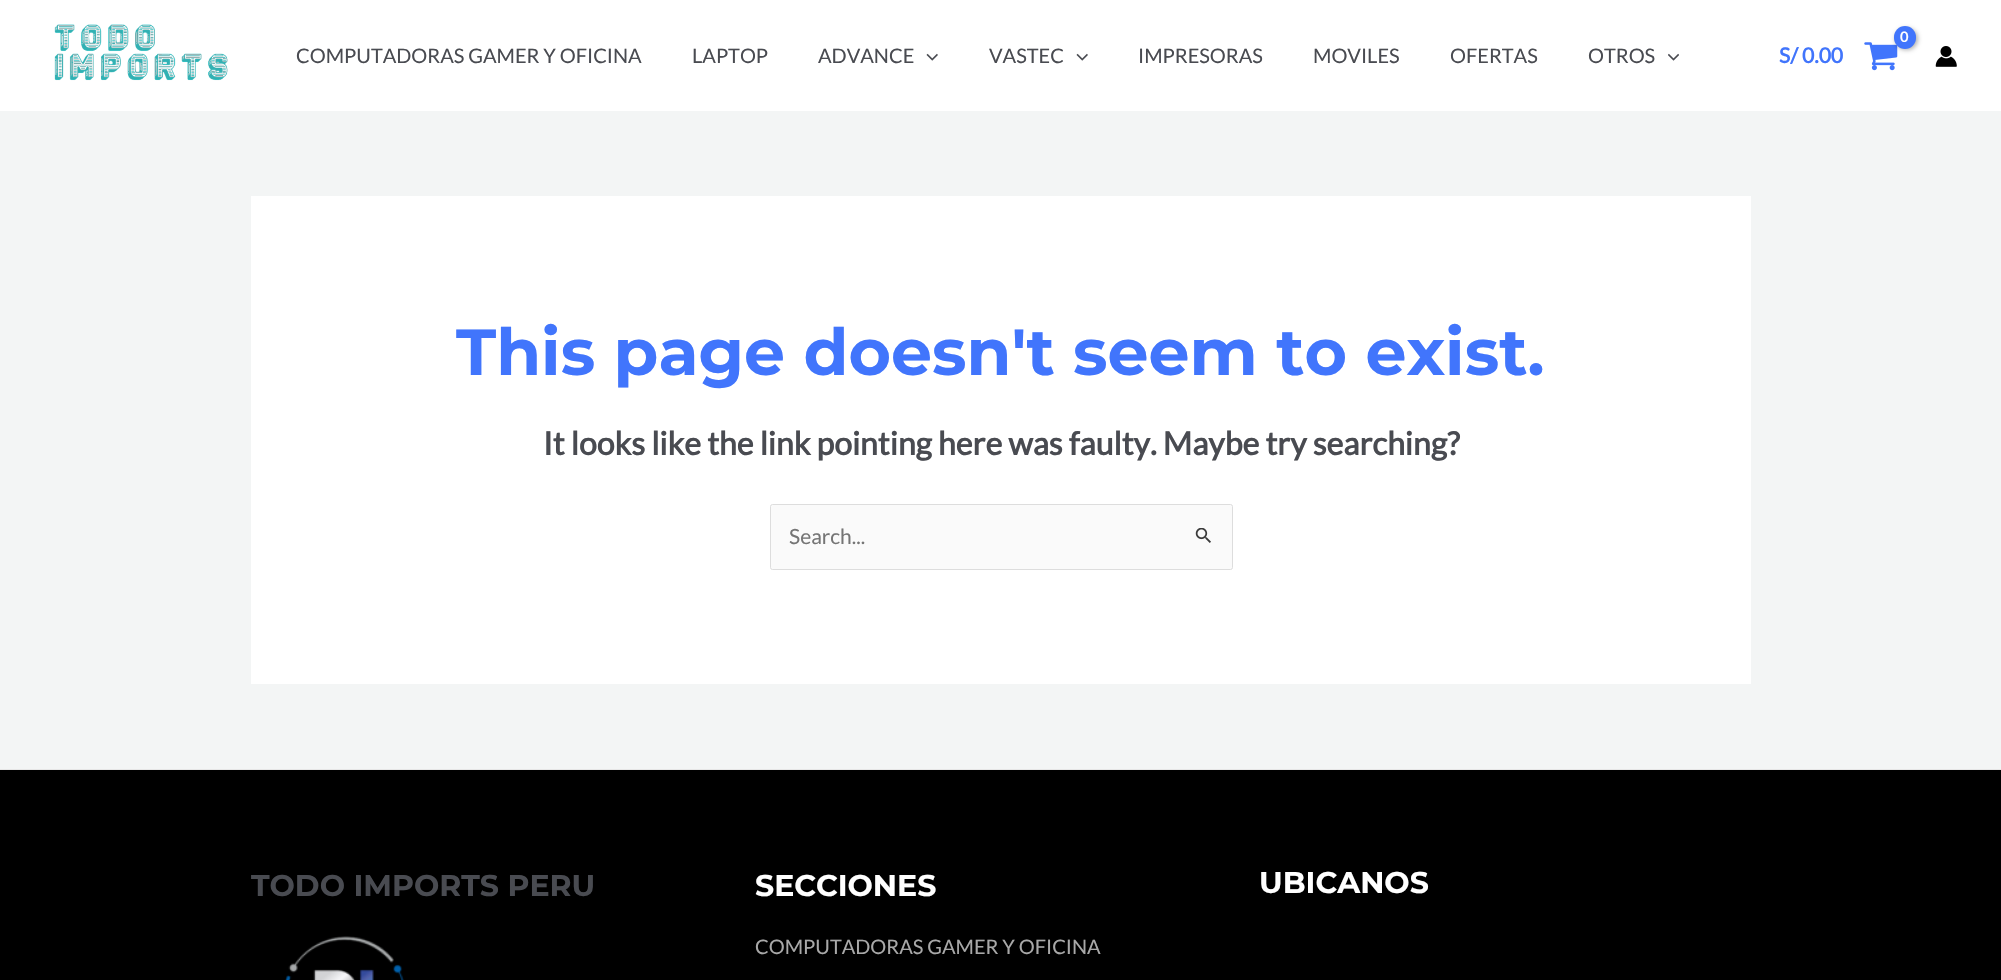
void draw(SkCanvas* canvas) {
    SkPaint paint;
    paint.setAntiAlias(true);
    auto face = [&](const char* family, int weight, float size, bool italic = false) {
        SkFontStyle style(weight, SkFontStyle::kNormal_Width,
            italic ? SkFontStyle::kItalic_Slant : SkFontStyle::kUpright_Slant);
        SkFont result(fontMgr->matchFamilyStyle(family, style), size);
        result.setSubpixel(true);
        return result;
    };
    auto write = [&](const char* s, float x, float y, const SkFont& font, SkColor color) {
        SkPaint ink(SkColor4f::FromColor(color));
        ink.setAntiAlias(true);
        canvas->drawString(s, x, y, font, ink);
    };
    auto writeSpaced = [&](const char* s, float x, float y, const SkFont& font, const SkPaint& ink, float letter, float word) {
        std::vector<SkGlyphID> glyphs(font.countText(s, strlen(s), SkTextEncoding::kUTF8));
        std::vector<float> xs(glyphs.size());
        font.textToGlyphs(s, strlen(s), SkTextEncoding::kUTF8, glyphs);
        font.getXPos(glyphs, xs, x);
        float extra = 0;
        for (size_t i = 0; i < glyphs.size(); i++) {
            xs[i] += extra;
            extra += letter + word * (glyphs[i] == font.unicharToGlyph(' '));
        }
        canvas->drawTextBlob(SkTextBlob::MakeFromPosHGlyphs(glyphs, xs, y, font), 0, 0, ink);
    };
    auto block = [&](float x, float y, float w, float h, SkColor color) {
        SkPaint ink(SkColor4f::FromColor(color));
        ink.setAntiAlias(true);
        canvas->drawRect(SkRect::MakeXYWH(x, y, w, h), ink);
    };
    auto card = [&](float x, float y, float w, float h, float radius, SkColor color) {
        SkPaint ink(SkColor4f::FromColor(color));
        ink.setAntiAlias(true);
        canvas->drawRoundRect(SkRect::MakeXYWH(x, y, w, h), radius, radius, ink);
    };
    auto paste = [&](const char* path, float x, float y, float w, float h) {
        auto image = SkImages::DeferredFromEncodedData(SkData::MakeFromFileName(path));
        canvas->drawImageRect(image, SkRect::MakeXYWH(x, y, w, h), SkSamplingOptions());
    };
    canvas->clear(SkColorSetRGB(243, 245, 245));
    block(0, 0, 2001, 111, SK_ColorWHITE);
    paste("pic1.png", 54, 24, 174, 57);
    auto kFont1 = face("Lato", 400, 20);
    write("COMPUTADORAS GAMER Y OFICINA", 296, 63, kFont1, SkColorSetRGB(73, 75, 81));
    write("LAPTOP", 692, 63, kFont1, SkColorSetRGB(73, 75, 81));
    write("ADVANCE", 818, 63, kFont1, SkColorSetRGB(73, 75, 81));
    paste("pic2.png", 926, 53, 12, 8);
    write("VASTEC", 989, 63, kFont1, SkColorSetRGB(73, 75, 81));
    paste("pic2.png", 1076, 53, 12, 8);
    write("IMPRESORAS", 1138, 63, kFont1, SkColorSetRGB(73, 75, 81));
    write("MOVILES", 1313, 63, kFont1, SkColorSetRGB(73, 75, 81));
    write("OFERTAS", 1450, 63, kFont1, SkColorSetRGB(73, 75, 81));
    write("OTROS", 1588, 63, kFont1, SkColorSetRGB(73, 75, 81));
    paste("pic3.png", 1668, 53, 11, 8);
    paste("pic4.png", 1864, 42, 34, 29);
    paint.setColor(SkColorSetARGB(77, 0, 0, 0));
    paint.setMaskFilter(SkMaskFilter::MakeBlur(kNormal_SkBlurStyle, 2));
    canvas->drawRoundRect(SkRect::MakeXYWH(1895, 28, 23, 22), 11, 11, paint);
    paint.setMaskFilter(nullptr);
    card(1894, 26, 22, 23, 11, SkColorSetRGB(65, 117, 252));
    auto kFont2 = face("Lato", 700, 14);
    paint.setColor(SK_ColorWHITE);
    writeSpaced("0", 1900, 42, kFont2, paint, -1, 0);
    auto kFont3 = face("Lato", 700, 21);
    write("S/ 0.00", 1779, 63, kFont3, SkColorSetRGB(65, 117, 252));
    paste("pic5.png", 1935, 46, 22, 21);
    block(251, 196, 1500, 488, SK_ColorWHITE);
    auto kFont4 = face("Montserrat", 100, 65);
    write("This page doesn't seem to exist.", 456, 375, kFont4, SkColorSetRGB(65, 117, 252));
    auto kFont5 = face("Lato", 700, 31.9f);
    write("It looks like the link pointing here was faulty. Maybe try searching?", 543, 455, kFont5, SkColorSetRGB(73, 75, 81));
    paint.setColor(SkColorSetRGB(250, 250, 250));
    canvas->drawRoundRect(SkRect::MakeXYWH(770.5f, 504.5f, 462, 65), 2, 2, paint);
    paint.setStyle(SkPaint::kStroke_Style);
    paint.setStrokeWidth(1);
    paint.setColor(SkColorSetRGB(221, 221, 221));
    canvas->drawRoundRect(SkRect::MakeXYWH(770.5f, 504.5f, 462, 65), 2, 2, paint);
    auto kFont6 = face("Lato", 400, 21);
    write("Search...", 789, 544, kFont6, SkColorSetRGB(117, 117, 117));
    paste("pic6.png", 1195, 528, 16, 15);
    block(0, 770, 2001, 210, SK_ColorBLACK);
    block(0, 769, 2001, 1, SkColorSetRGB(230, 230, 230));
    auto kFont7 = face("Montserrat", 100, 30);
    write("TODO IMPORTS PERU", 251, 896, kFont7, SkColorSetRGB(73, 75, 81));
    paste("pic7.png", 285, 936, 119, 44);
    write("SECCIONES", 755, 896, kFont7, SK_ColorWHITE);
    write("COMPUTADORAS GAMER Y OFICINA", 755, 954, kFont1, SkColorSetRGB(168, 168, 168));
    write("UBICANOS", 1259, 893, kFont7, SK_ColorWHITE);
}
